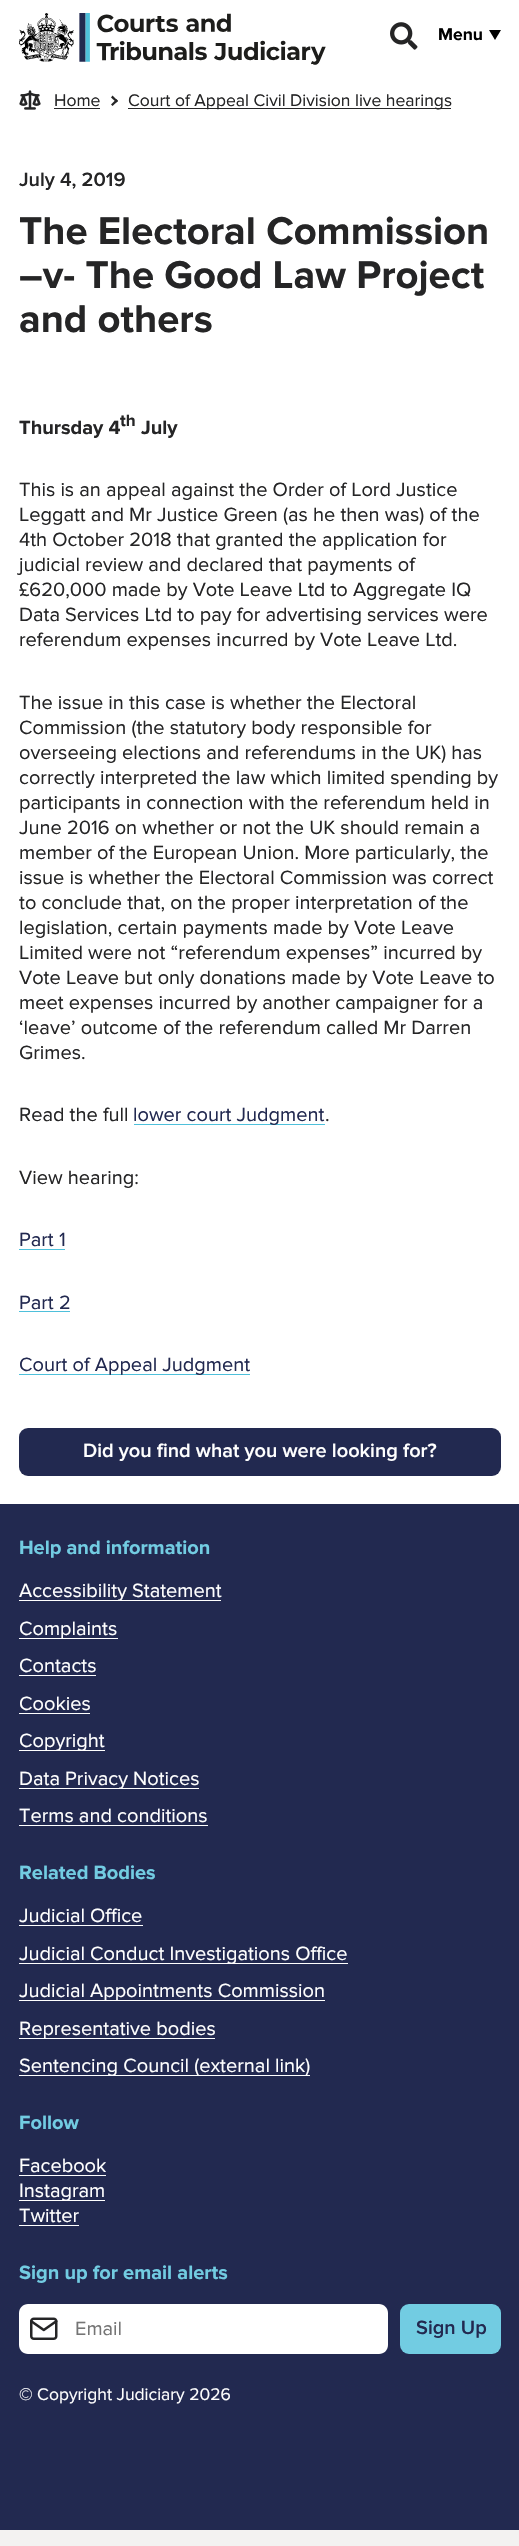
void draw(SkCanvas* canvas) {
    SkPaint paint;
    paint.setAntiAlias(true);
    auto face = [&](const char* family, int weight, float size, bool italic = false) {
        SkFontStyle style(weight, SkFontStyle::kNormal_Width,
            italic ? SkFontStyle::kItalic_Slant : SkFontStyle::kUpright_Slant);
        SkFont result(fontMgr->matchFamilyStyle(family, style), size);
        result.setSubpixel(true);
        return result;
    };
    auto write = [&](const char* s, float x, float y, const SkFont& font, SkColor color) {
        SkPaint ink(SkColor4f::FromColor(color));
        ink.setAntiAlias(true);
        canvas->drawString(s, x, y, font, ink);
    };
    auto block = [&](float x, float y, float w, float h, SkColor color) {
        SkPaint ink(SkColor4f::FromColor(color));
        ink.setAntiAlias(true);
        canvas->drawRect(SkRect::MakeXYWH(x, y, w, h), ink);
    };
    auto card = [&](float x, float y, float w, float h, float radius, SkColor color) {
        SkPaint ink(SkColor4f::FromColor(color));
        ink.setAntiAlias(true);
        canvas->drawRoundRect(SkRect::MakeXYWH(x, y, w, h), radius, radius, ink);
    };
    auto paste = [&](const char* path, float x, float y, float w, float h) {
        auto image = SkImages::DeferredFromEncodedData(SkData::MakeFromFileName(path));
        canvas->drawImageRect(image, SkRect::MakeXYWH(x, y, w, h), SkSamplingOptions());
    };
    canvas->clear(SkColorSetRGB(243, 242, 241));
    block(0, 0, 519, 1504, SK_ColorWHITE);
    paste("pic1.png", 19, 13, 307, 52);
    paste("pic2.png", 390, 22, 28, 28);
    auto kFont1 = face("Proxima Nova", 700, 17.5f);
    write("Menu", 438, 40, kFont1, SK_ColorBLACK);
    paint.setColor(SK_ColorBLACK);
    canvas->drawPath(SkPathBuilder().moveTo(489, 30).lineTo(501, 30).lineTo(495, 40).close().detach(), paint);
    paste("pic3.png", 19, 90, 22, 20);
    auto kFont2 = face("Proxima Nova", 400, 17.5f);
    write("Home", 54, 106, kFont2, SkColorSetRGB(37, 37, 38));
    block(54, 108, 46, 1, SkColorSetRGB(37, 37, 38));
    paint.setColor(SkColorSetRGB(37, 37, 38));
    canvas->drawPath(SkPathBuilder().moveTo(112.5f, 95.5f).lineTo(118, 101).lineTo(116.5f, 102.5f).lineTo(111, 97.5f).close().detach(), paint);
    canvas->drawPath(SkPathBuilder().moveTo(116.5f, 99).lineTo(118, 101).lineTo(112.5f, 106).lineTo(111, 104.5f).close().detach(), paint);
    block(128, 108, 323, 1, SkColorSetRGB(37, 37, 38));
    write("Court of Appeal Civil Division live hearings", 128, 106, kFont2, SkColorSetRGB(37, 37, 38));
    auto kFont3 = face("Proxima Nova", 600, 20);
    write("July 4, 2019", 19, 186, kFont3, SkColorSetRGB(37, 37, 38));
    auto kFont4 = face("Proxima Nova", 700, 40);
    write("The Electoral Commission", 19, 244, kFont4, SkColorSetRGB(37, 37, 38));
    write("–v- The Good Law Project", 19, 288, kFont4, SkColorSetRGB(37, 37, 38));
    write("and others", 19, 332, kFont4, SkColorSetRGB(37, 37, 38));
    auto kFont5 = face("Proxima Nova", 700, 20);
    write("Thursday 4", 19, 434, kFont5, SkColorSetRGB(37, 37, 38));
    auto kFont6 = face("Proxima Nova", 700, 17);
    write("th", 120, 426, kFont6, SkColorSetRGB(37, 37, 38));
    write("July", 141, 434, kFont5, SkColorSetRGB(37, 37, 38));
    auto kFont7 = face("Proxima Nova", 400, 20);
    write("This is an appeal against the Order of Lord Justice", 19, 496, kFont7, SkColorSetRGB(37, 37, 38));
    write("Leggatt and Mr Justice Green (as he then was) of the", 19, 521, kFont7, SkColorSetRGB(37, 37, 38));
    write("4th October 2018 that granted the application for", 19, 546, kFont7, SkColorSetRGB(37, 37, 38));
    write("judicial review and declared that payments of", 19, 571, kFont7, SkColorSetRGB(37, 37, 38));
    write("£620,000 made by Vote Leave Ltd to Aggregate IQ", 19, 596, kFont7, SkColorSetRGB(37, 37, 38));
    write("Data Services Ltd to pay for advertising services were", 19, 621, kFont7, SkColorSetRGB(37, 37, 38));
    write("referendum expenses incurred by Vote Leave Ltd.", 19, 646, kFont7, SkColorSetRGB(37, 37, 38));
    write("The issue in this case is whether the Electoral", 19, 709, kFont7, SkColorSetRGB(37, 37, 38));
    write("Commission (the statutory body responsible for", 19, 734, kFont7, SkColorSetRGB(37, 37, 38));
    write("overseeing elections and referendums in the UK) has", 19, 759, kFont7, SkColorSetRGB(37, 37, 38));
    write("correctly interpreted the law which limited spending by", 19, 784, kFont7, SkColorSetRGB(37, 37, 38));
    write("participants in connection with the referendum held in", 19, 809, kFont7, SkColorSetRGB(37, 37, 38));
    write("June 2016 on whether or not the UK should remain a", 19, 834, kFont7, SkColorSetRGB(37, 37, 38));
    write("member of the European Union. More particularly, the", 19, 859, kFont7, SkColorSetRGB(37, 37, 38));
    write("issue is whether the Electoral Commission was correct", 19, 884, kFont7, SkColorSetRGB(37, 37, 38));
    write("to conclude that, on the proper interpretation of the", 19, 909, kFont7, SkColorSetRGB(37, 37, 38));
    write("legislation, certain payments made by Vote Leave", 19, 934, kFont7, SkColorSetRGB(37, 37, 38));
    write("Limited were not “referendum expenses” incurred by", 19, 959, kFont7, SkColorSetRGB(37, 37, 38));
    write("Vote Leave but only donations made by Vote Leave to", 19, 984, kFont7, SkColorSetRGB(37, 37, 38));
    write("meet expenses incurred by another campaigner for a", 19, 1009, kFont7, SkColorSetRGB(37, 37, 38));
    write("‘leave’ outcome of the referendum called Mr Darren", 19, 1034, kFont7, SkColorSetRGB(37, 37, 38));
    write("Grimes.", 19, 1059, kFont7, SkColorSetRGB(37, 37, 38));
    write("Read the full", 19, 1121, kFont7, SkColorSetRGB(37, 37, 38));
    block(134, 1124, 191, 1, SkColorSetRGB(78, 192, 219));
    write("lower court Judgment", 133, 1121, kFont7, SkColorSetRGB(34, 41, 80));
    write(".", 325, 1121, kFont7, SkColorSetRGB(37, 37, 38));
    write("View hearing:", 19, 1184, kFont7, SkColorSetRGB(37, 37, 38));
    write("Part 1", 19, 1246, kFont7, SkColorSetRGB(34, 41, 80));
    block(19, 1249, 46, 1, SkColorSetRGB(78, 192, 219));
    write("Part 2", 19, 1309, kFont7, SkColorSetRGB(34, 41, 80));
    block(19, 1311, 51, 1, SkColorSetRGB(78, 192, 219));
    block(19, 1374, 231, 1, SkColorSetRGB(78, 192, 219));
    write("Court of Appeal Judgment", 19, 1371, kFont7, SkColorSetRGB(34, 41, 80));
    card(19, 1428, 482, 48, 9, SkColorSetRGB(34, 41, 80));
    write("Did you find what you were looking for?", 83, 1457, kFont3, SK_ColorWHITE);
    block(0, 1504, 519, 1026, SkColorSetRGB(34, 41, 80));
    write("Help and information", 19, 1554, kFont5, SkColorSetRGB(114, 204, 226));
    block(19, 1600, 202, 1, SK_ColorWHITE);
    write("Accessibility Statement", 19, 1597, kFont7, SK_ColorWHITE);
    block(19, 1638, 99, 1, SK_ColorWHITE);
    write("Complaints", 19, 1635, kFont7, SK_ColorWHITE);
    write("Contacts", 19, 1672, kFont7, SK_ColorWHITE);
    block(19, 1675, 77, 1, SK_ColorWHITE);
    write("Cookies", 19, 1710, kFont7, SK_ColorWHITE);
    block(19, 1713, 71, 1, SK_ColorWHITE);
    block(19, 1750, 86, 1, SK_ColorWHITE);
    write("Copyright", 19, 1747, kFont7, SK_ColorWHITE);
    block(19, 1788, 180, 1, SK_ColorWHITE);
    write("Data Privacy Notices", 19, 1785, kFont7, SK_ColorWHITE);
    write("Terms and conditions", 19, 1822, kFont7, SK_ColorWHITE);
    block(19, 1825, 189, 1, SK_ColorWHITE);
    write("Related Bodies", 19, 1879, kFont5, SkColorSetRGB(114, 204, 226));
    write("Judicial Office", 19, 1922, kFont7, SK_ColorWHITE);
    block(19, 1925, 124, 1, SK_ColorWHITE);
    block(19, 1963, 329, 1, SK_ColorWHITE);
    write("Judicial Conduct Investigations Office", 19, 1960, kFont7, SK_ColorWHITE);
    block(19, 2000, 306, 1, SK_ColorWHITE);
    write("Judicial Appointments Commission", 19, 1997, kFont7, SK_ColorWHITE);
    block(19, 2038, 196, 1, SK_ColorWHITE);
    write("Representative bodies", 19, 2035, kFont7, SK_ColorWHITE);
    block(19, 2075, 291, 1, SK_ColorWHITE);
    write("Sentencing Council (external link)", 19, 2072, kFont7, SK_ColorWHITE);
    write("Follow", 19, 2129, kFont5, SkColorSetRGB(114, 204, 226));
    write("Facebook", 19, 2172, kFont7, SK_ColorWHITE);
    block(19, 2175, 87, 1, SK_ColorWHITE);
    block(19, 2200, 86, 1, SK_ColorWHITE);
    write("Instagram", 19, 2197, kFont7, SK_ColorWHITE);
    write("Twitter", 19, 2222, kFont7, SK_ColorWHITE);
    block(19, 2225, 60, 1, SK_ColorWHITE);
    write("Sign up for email alerts", 19, 2279, kFont5, SkColorSetRGB(114, 204, 226));
    paint.setColor(SK_ColorWHITE);
    canvas->drawPath(SkPathBuilder().moveTo(28, 2304).lineTo(69, 2304).lineTo(69, 2354).lineTo(28, 2354).cubicTo(23, 2354, 19, 2350, 19, 2345).lineTo(19, 2313).cubicTo(19, 2308, 23, 2304, 28, 2304).close().detach(), paint);
    paste("pic4.png", 30, 2317, 28, 23);
    canvas->drawPath(SkPathBuilder().moveTo(69, 2304).lineTo(379, 2304).cubicTo(384, 2304, 388, 2308, 388, 2313).lineTo(388, 2345).cubicTo(388, 2350, 384, 2354, 379, 2354).lineTo(69, 2354).close().detach(), paint);
    write("Email", 75, 2335, kFont7, SkColorSetRGB(117, 117, 117));
    card(400, 2304, 101, 50, 9, SkColorSetRGB(114, 204, 226));
    write("Sign Up", 416, 2334, kFont3, SkColorSetRGB(34, 41, 80));
    write("© Copyright Judiciary 2026", 19, 2400, kFont2, SK_ColorWHITE);
}
